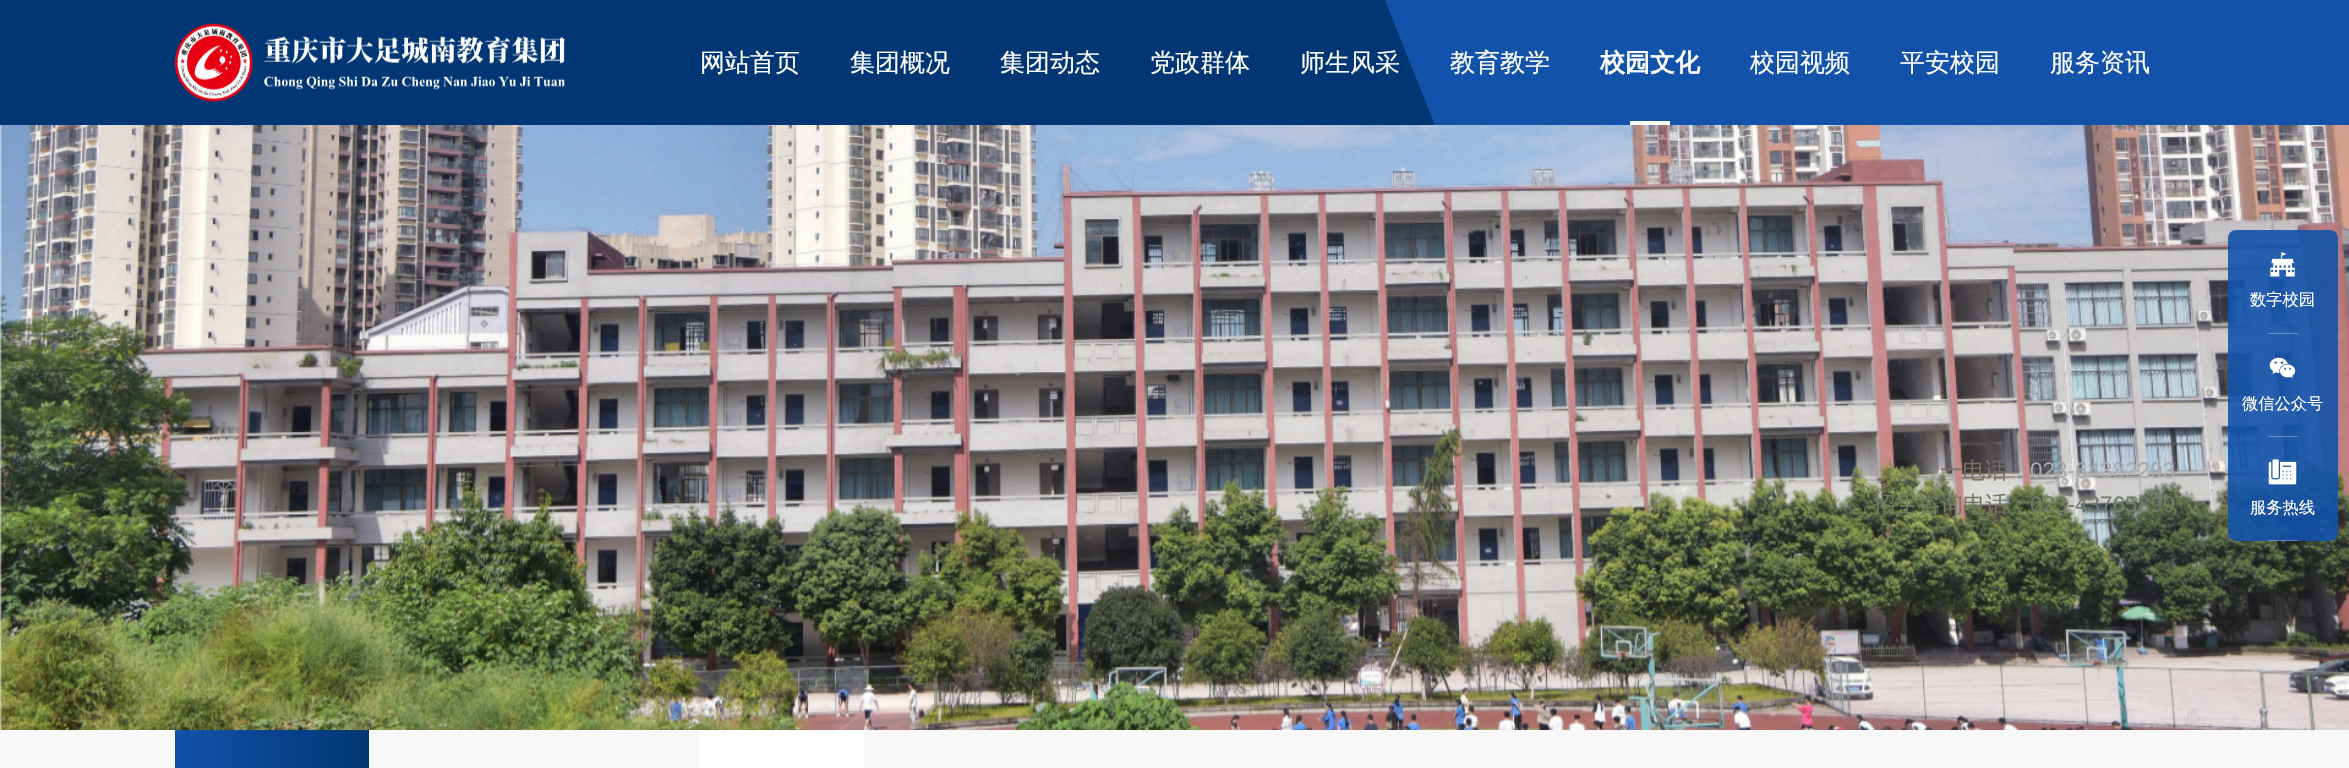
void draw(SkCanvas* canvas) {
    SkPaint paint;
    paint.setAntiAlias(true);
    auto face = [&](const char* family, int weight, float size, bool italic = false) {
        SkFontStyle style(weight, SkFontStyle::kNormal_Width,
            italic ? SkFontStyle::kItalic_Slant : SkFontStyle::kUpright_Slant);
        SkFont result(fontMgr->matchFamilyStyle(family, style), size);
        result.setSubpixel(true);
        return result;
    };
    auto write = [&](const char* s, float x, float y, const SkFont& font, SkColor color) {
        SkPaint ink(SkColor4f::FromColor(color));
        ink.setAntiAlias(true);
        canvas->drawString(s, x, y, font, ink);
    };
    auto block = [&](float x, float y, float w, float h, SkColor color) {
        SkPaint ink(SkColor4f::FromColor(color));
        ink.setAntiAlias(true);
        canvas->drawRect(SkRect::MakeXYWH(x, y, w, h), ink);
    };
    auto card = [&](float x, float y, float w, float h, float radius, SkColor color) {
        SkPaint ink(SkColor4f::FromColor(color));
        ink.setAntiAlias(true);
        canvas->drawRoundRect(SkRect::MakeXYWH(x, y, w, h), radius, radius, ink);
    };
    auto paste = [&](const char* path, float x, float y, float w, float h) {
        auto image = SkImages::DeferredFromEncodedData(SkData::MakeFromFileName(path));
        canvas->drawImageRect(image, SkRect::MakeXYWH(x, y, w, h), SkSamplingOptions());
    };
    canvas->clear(SK_ColorWHITE);
    block(0, 0, 1435, 125, SkColorSetRGB(0, 54, 115));
    paint.setColor(SkColorSetRGB(18, 82, 170));
    canvas->drawPath(SkPathBuilder().moveTo(1385, 0).lineTo(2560, 0).lineTo(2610, 125).lineTo(1435, 125).close().detach(), paint);
    paste("pic1.png", 175, 23, 390, 79);
    auto kFont1 = face("WenQuanYi Zen Hei", 500, 25);
    write("网站首页", 700, 71, kFont1, SK_ColorWHITE);
    write("集团概况", 850, 71, kFont1, SK_ColorWHITE);
    write("集团动态", 1000, 71, kFont1, SK_ColorWHITE);
    write("党政群体", 1150, 71, kFont1, SK_ColorWHITE);
    write("师生风采", 1300, 71, kFont1, SK_ColorWHITE);
    write("教育教学", 1450, 71, kFont1, SK_ColorWHITE);
    auto kFont2 = face("WenQuanYi Zen Hei", 700, 25);
    write("校园文化", 1600, 71, kFont2, SK_ColorWHITE);
    block(1630, 121, 40, 4, SK_ColorWHITE);
    write("校园视频", 1750, 71, kFont1, SK_ColorWHITE);
    write("平安校园", 1900, 71, kFont1, SK_ColorWHITE);
    write("服务资讯", 2050, 71, kFont1, SK_ColorWHITE);
    paste("pic2.png", 0, 125, 2349, 605);
    block(0, 730, 2349, 38, SkColorSetRGB(248, 248, 248));
    {
        const SkColor colors[] = {SkColorSetRGB(18, 82, 170), SkColorSetRGB(0, 54, 115)};
        const float stops[] = {0, 1};
        const SkPoint ends[] = {{175, 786}, {369, 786}};
        paint.setShader(SkGradientShader::MakeLinear(ends, colors, stops, 2, SkTileMode::kClamp));
        paint.setAlpha(255);
    }
    canvas->drawRect(SkRect::MakeXYWH(175, 730, 194, 38), paint);
    block(534, 764, 1, 4, SkColorSetRGB(252, 252, 252));
    block(699, 730, 165, 38, SK_ColorWHITE);
    block(864, 764, 1, 4, SkColorSetRGB(252, 252, 252));
    block(1029, 764, 1, 4, SkColorSetRGB(252, 252, 252));
    card(2228, 230, 110, 311, 8, SkColorSetARGB(230, 18, 82, 170));
    paste("pic3.png", 2270, 252, 25, 25);
    auto kFont3 = face("WenQuanYi Zen Hei", 500, 16.25f);
    write("数字校园", 2250, 305, kFont3, SK_ColorWHITE);
    block(2268, 333, 30, 1, SkColorSetARGB(77, 255, 255, 255));
    paste("pic4.png", 2269, 357, 27, 22);
    write("微信公众号", 2242, 409, kFont3, SK_ColorWHITE);
    block(2268, 436, 30, 1, SkColorSetARGB(77, 255, 255, 255));
    auto kFont4 = face("WenQuanYi Zen Hei", 500, 22.5f);
    write("一电话", 1940, 478, kFont4, SkColorSetRGB(117, 114, 102));
    auto kFont5 = face("Liberation Sans", 400, 22.5f);
    write("023-64382293", 2030, 478, kFont5, SkColorSetRGB(166, 170, 175));
    write("招生咨询电话：", 1873, 512, kFont4, SkColorSetRGB(117, 121, 97));
    write("023-43765899", 2030, 512, kFont5, SkColorSetRGB(114, 123, 105));
    paste("pic5.png", 2268, 459, 29, 26);
    write("服务热线", 2250, 513, kFont3, SK_ColorWHITE);
    block(2268, 540, 30, 1, SkColorSetARGB(77, 255, 255, 255));
}
